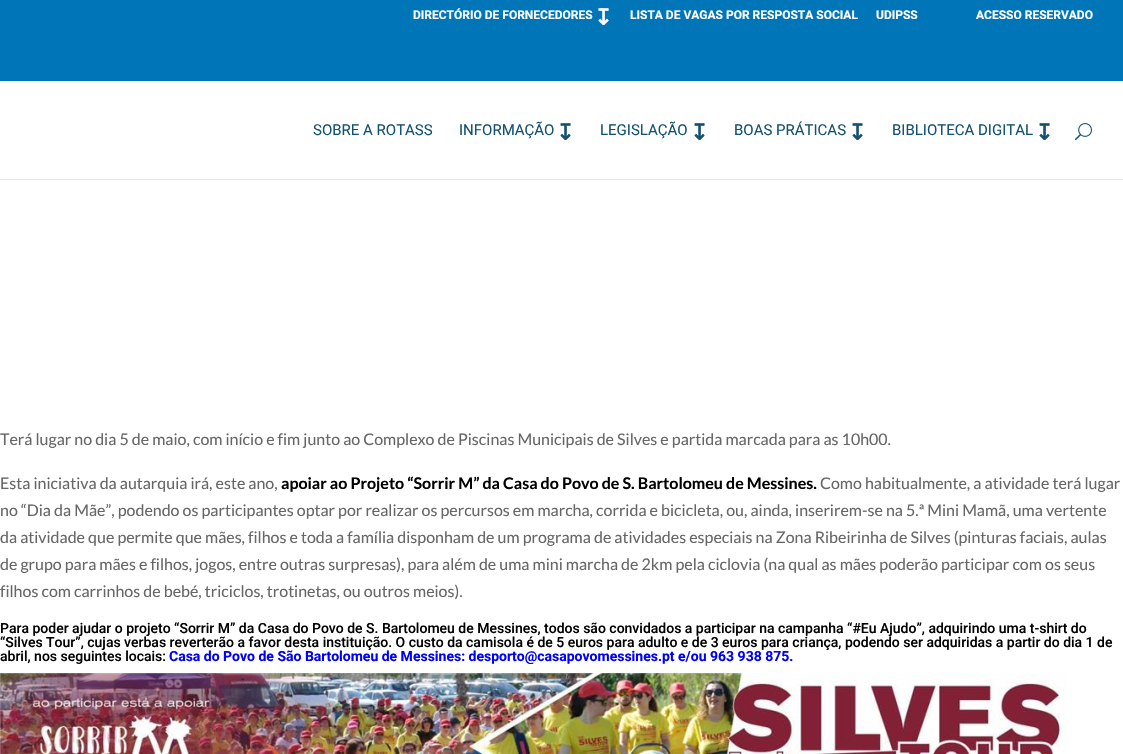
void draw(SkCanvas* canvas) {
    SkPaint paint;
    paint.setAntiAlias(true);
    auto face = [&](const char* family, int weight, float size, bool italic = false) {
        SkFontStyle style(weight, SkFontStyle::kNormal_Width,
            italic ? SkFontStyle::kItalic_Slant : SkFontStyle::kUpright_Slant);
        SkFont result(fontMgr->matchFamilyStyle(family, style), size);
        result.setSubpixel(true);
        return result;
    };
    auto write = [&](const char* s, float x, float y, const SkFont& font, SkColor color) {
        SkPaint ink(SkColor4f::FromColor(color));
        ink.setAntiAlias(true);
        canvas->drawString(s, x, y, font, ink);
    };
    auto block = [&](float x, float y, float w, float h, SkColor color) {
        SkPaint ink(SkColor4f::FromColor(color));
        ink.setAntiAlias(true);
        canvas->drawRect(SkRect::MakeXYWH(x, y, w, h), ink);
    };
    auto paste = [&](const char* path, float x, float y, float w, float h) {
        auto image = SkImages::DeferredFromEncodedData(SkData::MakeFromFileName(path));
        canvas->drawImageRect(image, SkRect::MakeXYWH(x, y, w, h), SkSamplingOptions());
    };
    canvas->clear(SK_ColorWHITE);
    block(0, 0, 1123, 81, SkColorSetRGB(0, 117, 183));
    auto kFont1 = face("Roboto", 700, 12);
    write("DIRECTÓRIO DE FORNECEDORES", 413, 19, kFont1, SK_ColorWHITE);
    auto kFont2 = face("DejaVu Sans", 700, 22);
    write("↧", 594, 25, kFont2, SK_ColorWHITE);
    write("LISTA DE VAGAS POR RESPOSTA SOCIAL", 630, 19, kFont1, SK_ColorWHITE);
    write("UDIPSS", 876, 19, kFont1, SK_ColorWHITE);
    write("ACESSO RESERVADO", 976, 19, kFont1, SK_ColorWHITE);
    block(0, 179, 1123, 1, SkColorSetRGB(230, 230, 230));
    auto kFont3 = face("Roboto", 400, 15);
    write("SOBRE A ROTASS", 313, 135, kFont3, SkColorSetRGB(19, 82, 115));
    write("INFORMAÇÃO", 459, 135, kFont3, SkColorSetRGB(19, 82, 115));
    write("↧", 556, 140, kFont2, SkColorSetRGB(19, 82, 115));
    write("LEGISLAÇÃO", 600, 135, kFont3, SkColorSetRGB(19, 82, 115));
    write("↧", 690, 140, kFont2, SkColorSetRGB(19, 82, 115));
    write("BOAS PRÁTICAS", 734, 135, kFont3, SkColorSetRGB(19, 82, 115));
    write("↧", 848, 140, kFont2, SkColorSetRGB(19, 82, 115));
    write("BIBLIOTECA DIGITAL", 892, 135, kFont3, SkColorSetRGB(19, 82, 115));
    write("↧", 1035, 140, kFont2, SkColorSetRGB(19, 82, 115));
    paste("pic1.png", 1075, 123, 17, 18);
    auto kFont4 = face("Lato", 400, 16);
    write("Terá lugar no dia 5 de maio, com início e fim junto ao Complexo de Piscinas Municipais de Silves e partida marcada para as 10h00.", 0, 445, kFont4, SkColorSetRGB(102, 102, 102));
    write("Esta iniciativa da autarquia irá, este ano,", 0, 489, kFont4, SkColorSetRGB(102, 102, 102));
    auto kFont5 = face("Lato", 700, 16);
    write("apoiar ao Projeto “Sorrir M” da Casa do Povo de S. Bartolomeu de Messines.", 281, 489, kFont5, SK_ColorBLACK);
    write("Como habitualmente, a atividade terá lugar", 820, 489, kFont4, SkColorSetRGB(102, 102, 102));
    write("no “Dia da Mãe”, podendo os participantes optar por realizar os percursos em marcha, corrida e bicicleta, ou, ainda, inserirem-se na 5.ª Mini Mamã, uma vertente", 0, 516, kFont4, SkColorSetRGB(102, 102, 102));
    write("da atividade que permite que mães, filhos e toda a família disponham de um programa de atividades especiais na Zona Ribeirinha de Silves (pinturas faciais, aulas", 0, 543, kFont4, SkColorSetRGB(102, 102, 102));
    write("de grupo para mães e filhos, jogos, entre outras surpresas), para além de uma mini marcha de 2km pela ciclovia (na qual as mães poderão participar com os seus", 0, 570, kFont4, SkColorSetRGB(102, 102, 102));
    write("filhos com carrinhos de bebé, triciclos, trotinetas, ou outros meios).", 0, 597, kFont4, SkColorSetRGB(102, 102, 102));
    auto kFont6 = face("Roboto", 500, 14);
    write("Para poder ajudar o projeto “Sorrir M” da Casa do Povo de S. Bartolomeu de Messines, todos são convidados a participar na campanha “#Eu Ajudo”, adquirindo uma t-shirt do", 0, 633, kFont6, SK_ColorBLACK);
    write("“Silves Tour”, cujas verbas reverterão a favor desta instituição. O custo da camisola é de 5 euros para adulto e de 3 euros para criança, podendo ser adquiridas a partir do dia 1 de", 0, 647, kFont6, SK_ColorBLACK);
    write("abril, nos seguintes locais:", 0, 661, kFont6, SK_ColorBLACK);
    auto kFont7 = face("Roboto", 700, 14);
    write("Casa do Povo de São Bartolomeu de Messines: desporto@casapovomessines.pt e/ou 963 938 875.", 169, 661, kFont7, SkColorSetRGB(0, 0, 255));
    paste("pic2.png", 0, 673, 1067, 81);
}
